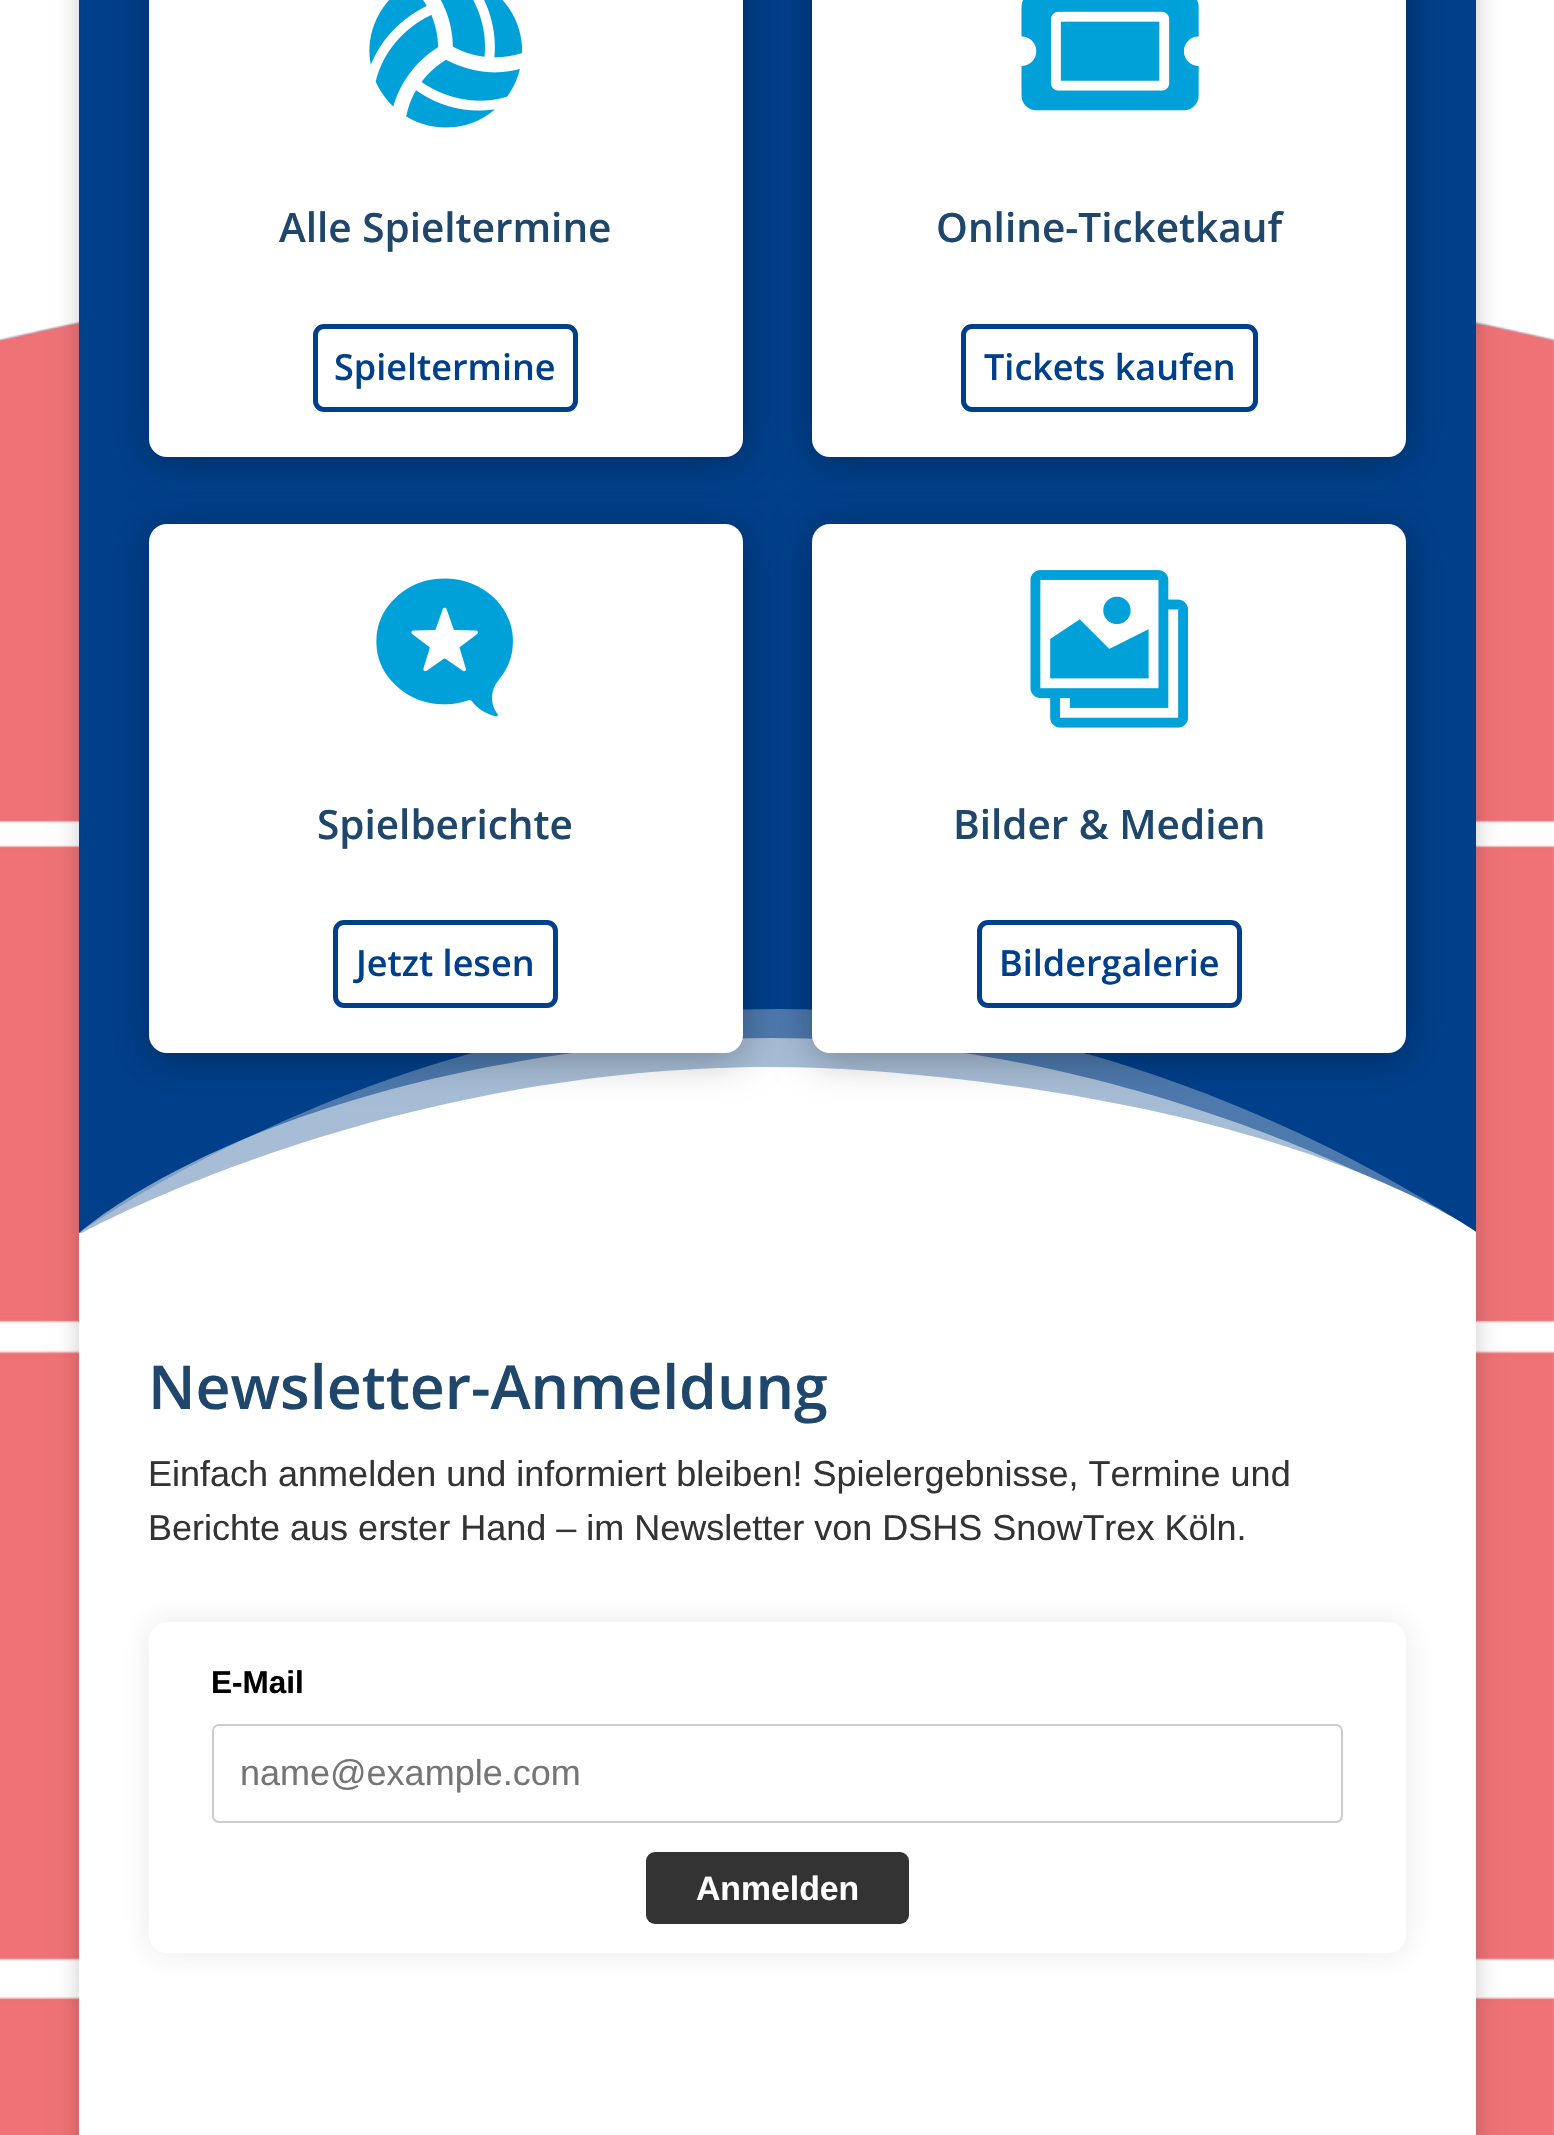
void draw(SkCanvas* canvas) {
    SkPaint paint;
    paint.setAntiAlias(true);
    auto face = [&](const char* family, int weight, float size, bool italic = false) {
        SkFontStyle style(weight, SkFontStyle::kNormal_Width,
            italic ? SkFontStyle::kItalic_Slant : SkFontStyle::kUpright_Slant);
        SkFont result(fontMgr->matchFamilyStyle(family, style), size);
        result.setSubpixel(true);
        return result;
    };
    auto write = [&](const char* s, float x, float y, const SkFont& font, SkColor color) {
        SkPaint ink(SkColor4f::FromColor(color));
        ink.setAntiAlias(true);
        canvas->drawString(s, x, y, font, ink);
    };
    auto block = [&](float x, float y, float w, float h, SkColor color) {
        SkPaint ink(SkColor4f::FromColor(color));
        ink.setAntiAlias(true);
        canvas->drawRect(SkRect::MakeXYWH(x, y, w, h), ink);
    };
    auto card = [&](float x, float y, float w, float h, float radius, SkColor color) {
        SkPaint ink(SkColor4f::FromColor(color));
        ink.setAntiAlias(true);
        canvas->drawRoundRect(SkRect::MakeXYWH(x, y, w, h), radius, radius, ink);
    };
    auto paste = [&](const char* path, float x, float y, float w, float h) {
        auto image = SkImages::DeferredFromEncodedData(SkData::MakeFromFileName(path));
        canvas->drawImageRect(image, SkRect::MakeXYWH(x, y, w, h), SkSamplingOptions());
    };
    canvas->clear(SK_ColorWHITE);
    paste("pic1.png", 0, 250, 1554, 1885);
    paint.setColor(SkColorSetARGB(51, 0, 0, 0));
    paint.setMaskFilter(SkMaskFilter::MakeBlur(kNormal_SkBlurStyle, 11));
    canvas->drawRect(SkRect::MakeXYWH(79, -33, 1397, 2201), paint);
    paint.setMaskFilter(nullptr);
    block(79, 0, 1397, 1233, SkColorSetRGB(0, 63, 138));
    paint.setColor(SkColorSetARGB(77, 0, 0, 0));
    paint.setMaskFilter(SkMaskFilter::MakeBlur(kNormal_SkBlurStyle, 20));
    canvas->drawRoundRect(SkRect::MakeXYWH(149, -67, 594, 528), 18, 18, paint);
    paint.setMaskFilter(nullptr);
    card(149, -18, 594, 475, 18, SK_ColorWHITE);
    paste("pic2.png", 369, 0, 154, 128);
    auto kFont1 = face("Open Sans", 600, 40.5f);
    write("Alle Spieltermine", 279, 242, kFont1, SkColorSetRGB(31, 71, 108));
    paint.setStyle(SkPaint::kStroke_Style);
    paint.setStrokeWidth(5);
    paint.setColor(SkColorSetRGB(0, 63, 138));
    canvas->drawRoundRect(SkRect::MakeXYWH(315.5f, 326.5f, 260, 83), 8.5f, 8.5f, paint);
    auto kFont2 = face("Open Sans", 600, 36);
    write("Spieltermine", 334, 380, kFont2, SkColorSetRGB(0, 63, 138));
    paint.setStyle(SkPaint::kFill_Style);
    paint.setColor(SkColorSetARGB(77, 0, 0, 0));
    paint.setMaskFilter(SkMaskFilter::MakeBlur(kNormal_SkBlurStyle, 20));
    canvas->drawRoundRect(SkRect::MakeXYWH(812, -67, 594, 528), 18, 18, paint);
    paint.setMaskFilter(nullptr);
    card(812, -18, 594, 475, 18, SK_ColorWHITE);
    paste("pic3.png", 1021, 0, 178, 111);
    write("Online-Ticketkauf", 936, 242, kFont1, SkColorSetRGB(31, 71, 108));
    paint.setStyle(SkPaint::kStroke_Style);
    paint.setColor(SkColorSetRGB(0, 63, 138));
    canvas->drawRoundRect(SkRect::MakeXYWH(963.5f, 326.5f, 292, 83), 8.5f, 8.5f, paint);
    write("Tickets kaufen", 984, 380, kFont2, SkColorSetRGB(0, 63, 138));
    canvas->save();
    canvas->clipRect(SkRect::MakeXYWH(79, 1008, 1397, 225));
    paint.setStyle(SkPaint::kFill_Style);
    paint.setColor(SkColorSetRGB(77, 121, 173));
    canvas->drawPath(SkPathBuilder().moveTo(79, 1234).lineTo(79, 1233).cubicTo(99, 1219, 404, 1009, 778, 1009).cubicTo(1165, 1009, 1478, 1234, 1478, 1234).close().detach(), paint);
    paint.setColor(SkColorSetARGB(128, 255, 255, 255));
    canvas->drawPath(SkPathBuilder().moveTo(79, 1233).cubicTo(94, 1220, 272, 1072, 686, 1041).cubicTo(1120, 1009, 1478, 1234, 1478, 1234).lineTo(79, 1234).close().detach(), paint);
    paint.setColor(SK_ColorWHITE);
    canvas->drawPath(SkPathBuilder().moveTo(873, 1071).cubicTo(1310, 1105, 1479, 1234, 1479, 1234).lineTo(80, 1234).cubicTo(80, 1234, 435, 1037, 873, 1071).close().detach(), paint);
    canvas->restore();
    paint.setColor(SkColorSetARGB(77, 0, 0, 0));
    paint.setMaskFilter(SkMaskFilter::MakeBlur(kNormal_SkBlurStyle, 20));
    canvas->drawRoundRect(SkRect::MakeXYWH(149, 529, 594, 529), 18, 18, paint);
    paint.setMaskFilter(nullptr);
    card(149, 524, 594, 529, 18, SK_ColorWHITE);
    paste("pic4.png", 376, 578, 137, 139);
    write("Spielberichte", 317, 839, kFont1, SkColorSetRGB(31, 71, 108));
    paint.setStyle(SkPaint::kStroke_Style);
    paint.setColor(SkColorSetRGB(0, 63, 138));
    canvas->drawRoundRect(SkRect::MakeXYWH(335.5f, 922.5f, 220, 83), 8.5f, 8.5f, paint);
    write("Jetzt lesen", 356, 976, kFont2, SkColorSetRGB(0, 63, 138));
    paint.setStyle(SkPaint::kFill_Style);
    paint.setColor(SkColorSetARGB(77, 0, 0, 0));
    paint.setMaskFilter(SkMaskFilter::MakeBlur(kNormal_SkBlurStyle, 20));
    canvas->drawRoundRect(SkRect::MakeXYWH(812, 529, 594, 529), 18, 18, paint);
    paint.setMaskFilter(nullptr);
    card(812, 524, 594, 529, 18, SK_ColorWHITE);
    paste("pic5.png", 1030, 570, 158, 158);
    write("Bilder & Medien", 953, 839, kFont1, SkColorSetRGB(31, 71, 108));
    paint.setStyle(SkPaint::kStroke_Style);
    paint.setColor(SkColorSetRGB(0, 63, 138));
    canvas->drawRoundRect(SkRect::MakeXYWH(979.5f, 922.5f, 260, 83), 8.5f, 8.5f, paint);
    write("Bildergalerie", 999, 976, kFont2, SkColorSetRGB(0, 63, 138));
    block(79, 1233, 1397, 902, SK_ColorWHITE);
    auto kFont3 = face("Open Sans", 600, 60.75f);
    write("Newsletter-Anmeldung", 148, 1409, kFont3, SkColorSetRGB(31, 71, 108));
    auto kFont4 = face("Liberation Sans", 400, 36);
    write("Einfach anmelden und informiert bleiben! Spielergebnisse, Termine und", 148, 1486, kFont4, SkColorSetRGB(51, 51, 51));
    write("Berichte aus erster Hand – im Newsletter von DSHS SnowTrex Köln.", 148, 1540, kFont4, SkColorSetRGB(51, 51, 51));
    paint.setStyle(SkPaint::kFill_Style);
    paint.setColor(SkColorSetARGB(26, 51, 51, 51));
    paint.setMaskFilter(SkMaskFilter::MakeBlur(kNormal_SkBlurStyle, 16));
    canvas->drawRoundRect(SkRect::MakeXYWH(149, 1622, 1257, 331), 18, 18, paint);
    paint.setMaskFilter(nullptr);
    card(149, 1622, 1257, 331, 18, SK_ColorWHITE);
    auto kFont5 = face("Liberation Sans", 700, 31.5f);
    write("E-Mail", 211, 1693, kFont5, SK_ColorBLACK);
    paint.setStyle(SkPaint::kStroke_Style);
    paint.setStrokeWidth(2);
    paint.setColor(SkColorSetRGB(204, 204, 204));
    canvas->drawRoundRect(SkRect::MakeXYWH(213, 1725, 1129, 97), 6, 6, paint);
    write("name@example.com", 240, 1785, kFont4, SkColorSetRGB(117, 117, 117));
    card(646, 1852, 263, 72, 9, SkColorSetRGB(51, 51, 51));
    auto kFont6 = face("Liberation Sans", 700, 33.75f);
    write("Anmelden", 696, 1900, kFont6, SK_ColorWHITE);
}
